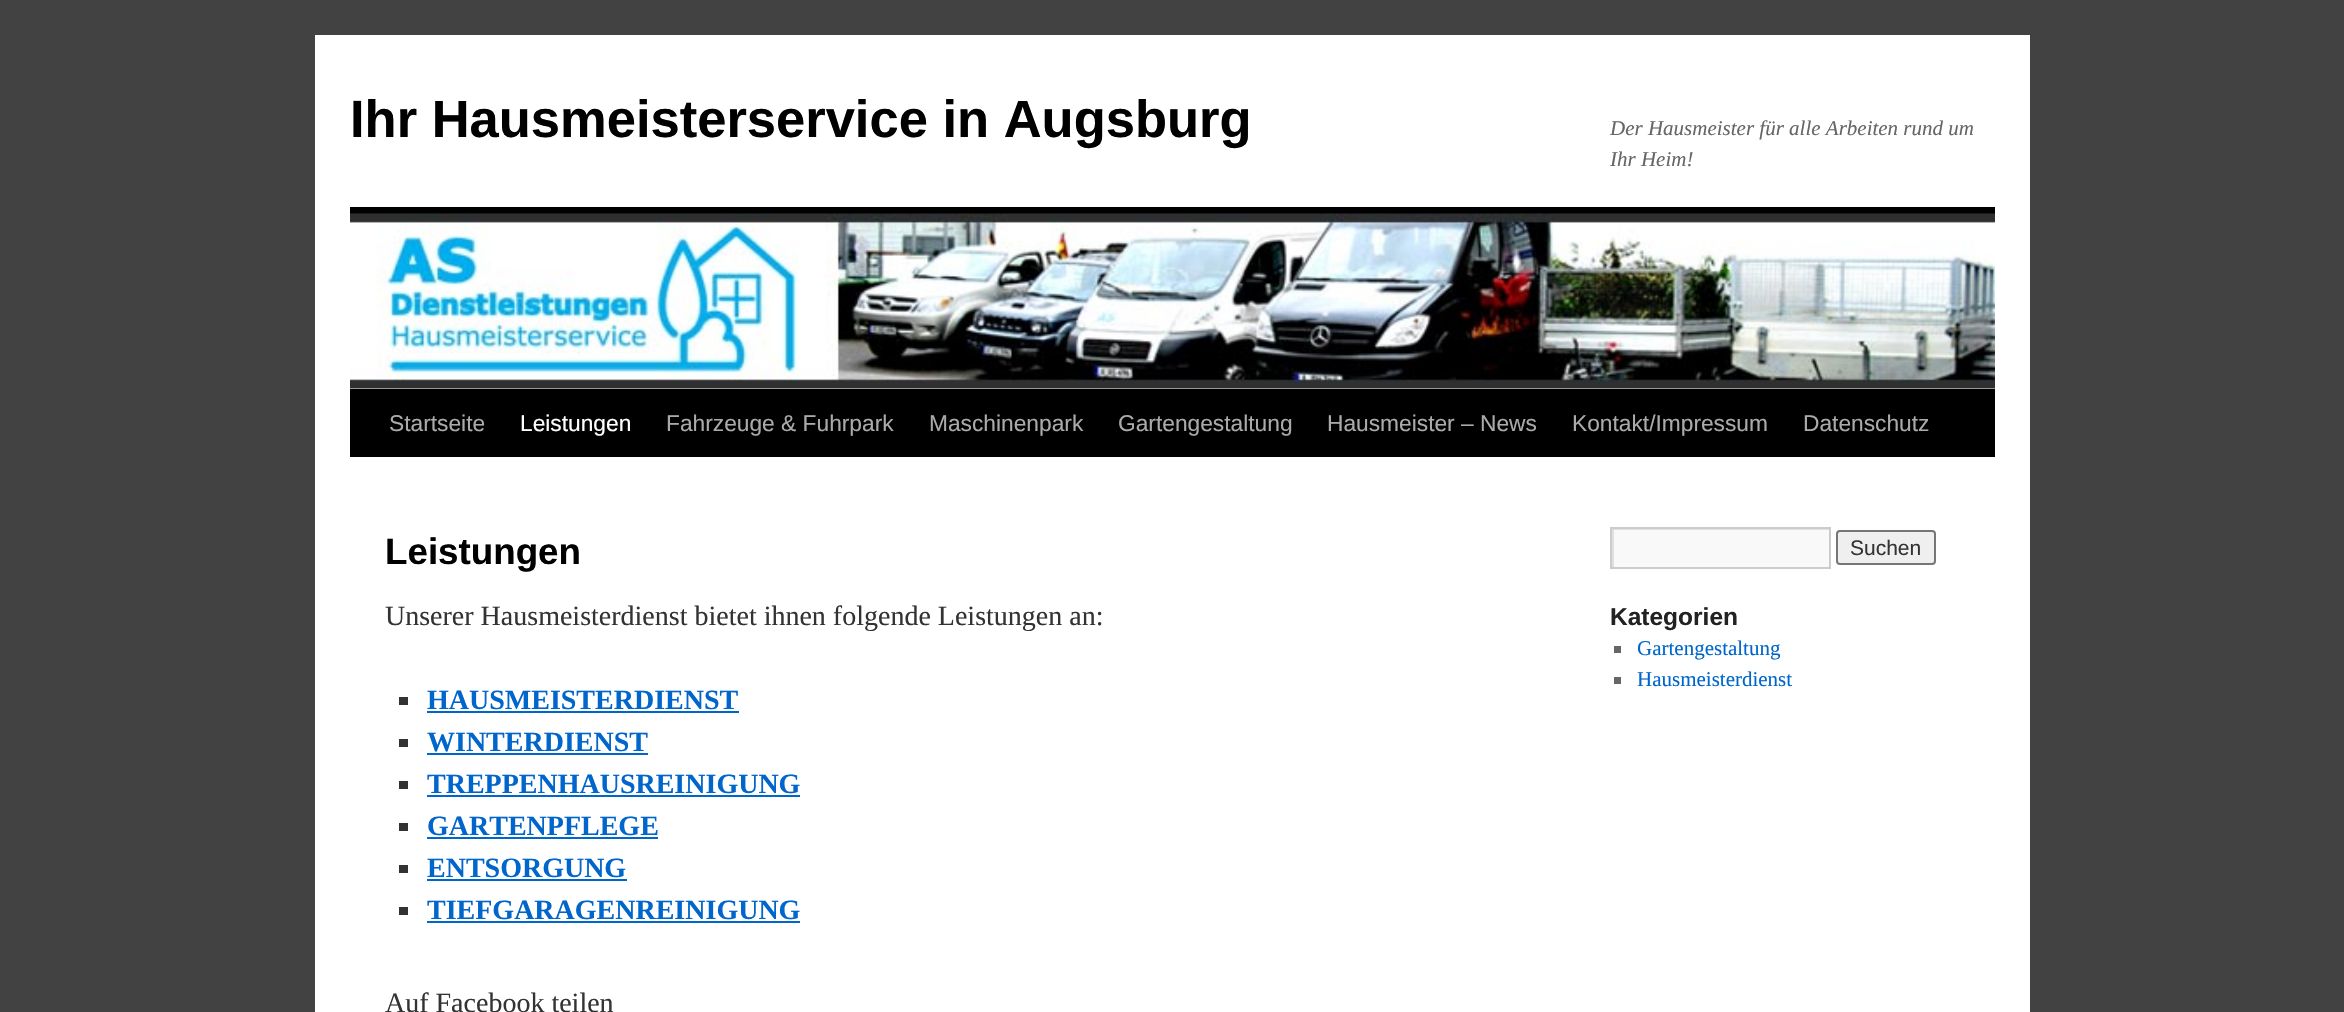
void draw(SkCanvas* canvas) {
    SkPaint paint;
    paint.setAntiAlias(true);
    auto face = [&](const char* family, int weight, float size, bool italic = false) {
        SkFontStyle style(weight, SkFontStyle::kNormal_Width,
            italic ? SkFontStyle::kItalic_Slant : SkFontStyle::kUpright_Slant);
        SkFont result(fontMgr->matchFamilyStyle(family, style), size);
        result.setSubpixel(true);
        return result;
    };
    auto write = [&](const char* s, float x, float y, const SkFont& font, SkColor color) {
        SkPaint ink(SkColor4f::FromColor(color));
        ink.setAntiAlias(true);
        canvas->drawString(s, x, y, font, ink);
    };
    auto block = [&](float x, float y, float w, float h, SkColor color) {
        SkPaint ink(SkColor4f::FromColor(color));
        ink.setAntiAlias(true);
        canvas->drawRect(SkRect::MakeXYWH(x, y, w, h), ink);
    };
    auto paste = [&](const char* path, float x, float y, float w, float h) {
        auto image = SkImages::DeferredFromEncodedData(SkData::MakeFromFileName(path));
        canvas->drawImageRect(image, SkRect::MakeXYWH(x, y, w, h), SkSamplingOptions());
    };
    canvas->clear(SkColorSetRGB(66, 66, 66));
    block(315, 35, 1715, 977, SK_ColorWHITE);
    auto kFont1 = face("Liberation Sans", 700, 52.5f);
    write("Ihr Hausmeisterservice in Augsburg", 350, 137, kFont1, SK_ColorBLACK);
    auto kFont2 = face("Liberation Serif", 400, 21, true);
    write("Der Hausmeister für alle Arbeiten rund um", 1610, 135, kFont2, SkColorSetRGB(102, 102, 102));
    write("Ihr Heim!", 1610, 166, kFont2, SkColorSetRGB(102, 102, 102));
    block(350, 207, 1645, 7, SK_ColorBLACK);
    block(350, 389, 1645, 68, SK_ColorBLACK);
    paste("pic1.png", 350, 213, 1645, 176);
    auto kFont3 = face("Liberation Sans", 400, 22.75f);
    write("Startseite", 389, 431, kFont3, SkColorSetRGB(170, 170, 170));
    write("Leistungen", 520, 431, kFont3, SK_ColorWHITE);
    write("Fahrzeuge & Fuhrpark", 666, 431, kFont3, SkColorSetRGB(170, 170, 170));
    write("Maschinenpark", 929, 431, kFont3, SkColorSetRGB(170, 170, 170));
    write("Gartengestaltung", 1118, 431, kFont3, SkColorSetRGB(170, 170, 170));
    write("Hausmeister – News", 1327, 431, kFont3, SkColorSetRGB(170, 170, 170));
    write("Kontakt/Impressum", 1572, 431, kFont3, SkColorSetRGB(170, 170, 170));
    write("Datenschutz", 1803, 431, kFont3, SkColorSetRGB(170, 170, 170));
    auto kFont4 = face("Liberation Sans", 700, 36.75f);
    write("Leistungen", 385, 564, kFont4, SK_ColorBLACK);
    auto kFont5 = face("Liberation Serif", 400, 28);
    write("Unserer Hausmeisterdienst bietet ihnen folgende Leistungen an:", 385, 625, kFont5, SkColorSetRGB(51, 51, 51));
    block(399, 697, 9, 8, SkColorSetRGB(51, 51, 51));
    auto kFont6 = face("Liberation Serif", 700, 28);
    write("HAUSMEISTERDIENST", 427, 709, kFont6, SkColorSetRGB(0, 102, 204));
    block(427, 711, 312, 2, SkColorSetRGB(0, 102, 204));
    block(399, 739, 9, 8, SkColorSetRGB(51, 51, 51));
    write("WINTERDIENST", 427, 751, kFont6, SkColorSetRGB(0, 102, 204));
    block(427, 753, 221, 2, SkColorSetRGB(0, 102, 204));
    block(399, 781, 9, 8, SkColorSetRGB(51, 51, 51));
    write("TREPPENHAUSREINIGUNG", 427, 793, kFont6, SkColorSetRGB(0, 102, 204));
    block(427, 795, 373, 2, SkColorSetRGB(0, 102, 204));
    block(399, 823, 9, 8, SkColorSetRGB(51, 51, 51));
    write("GARTENPFLEGE", 427, 835, kFont6, SkColorSetRGB(0, 102, 204));
    block(427, 837, 231, 2, SkColorSetRGB(0, 102, 204));
    block(399, 865, 9, 8, SkColorSetRGB(51, 51, 51));
    write("ENTSORGUNG", 427, 877, kFont6, SkColorSetRGB(0, 102, 204));
    block(427, 879, 200, 2, SkColorSetRGB(0, 102, 204));
    block(399, 907, 9, 8, SkColorSetRGB(51, 51, 51));
    write("TIEFGARAGENREINIGUNG", 427, 919, kFont6, SkColorSetRGB(0, 102, 204));
    block(427, 921, 373, 2, SkColorSetRGB(0, 102, 204));
    write("Auf Facebook teilen", 385, 1012, kFont5, SkColorSetRGB(51, 51, 51));
    block(1614, 530, 215, 37, SkColorSetRGB(249, 249, 249));
    canvas->save();
    canvas->clipRect(SkRect::MakeXYWH(1612, 529, 217, 38));
    paint.setColor(SkColorSetRGB(224, 224, 224));
    canvas->drawPath(SkPathBuilder(SkPathFillType::kEvenOdd).moveTo(1438, 355).lineTo(2002, 355).lineTo(2002, 740).lineTo(1438, 740).close().moveTo(1614, 530).lineTo(1830, 530).lineTo(1830, 569).lineTo(1614, 569).close().detach(), paint);
    canvas->restore();
    paint.setStyle(SkPaint::kStroke_Style);
    paint.setStrokeWidth(2);
    paint.setColor(SkColorSetRGB(204, 204, 204));
    canvas->drawRect(SkRect::MakeXYWH(1611, 528, 219, 40), paint);
    paint.setStyle(SkPaint::kFill_Style);
    paint.setColor(SkColorSetRGB(239, 239, 239));
    canvas->drawRoundRect(SkRect::MakeXYWH(1837, 531, 98, 33), 3, 3, paint);
    paint.setStyle(SkPaint::kStroke_Style);
    paint.setColor(SkColorSetRGB(118, 118, 118));
    canvas->drawRoundRect(SkRect::MakeXYWH(1837, 531, 98, 33), 3, 3, paint);
    auto kFont7 = face("Liberation Sans", 400, 21);
    write("Suchen", 1850, 555, kFont7, SkColorSetRGB(51, 51, 51));
    auto kFont8 = face("Liberation Sans", 700, 24.5f);
    write("Kategorien", 1610, 625, kFont8, SkColorSetRGB(34, 34, 34));
    block(1614, 646, 7, 7, SkColorSetRGB(102, 102, 102));
    auto kFont9 = face("Liberation Serif", 400, 21);
    write("Gartengestaltung", 1637, 655, kFont9, SkColorSetRGB(0, 102, 204));
    block(1614, 677, 7, 7, SkColorSetRGB(102, 102, 102));
    write("Hausmeisterdienst", 1637, 686, kFont9, SkColorSetRGB(0, 102, 204));
}
